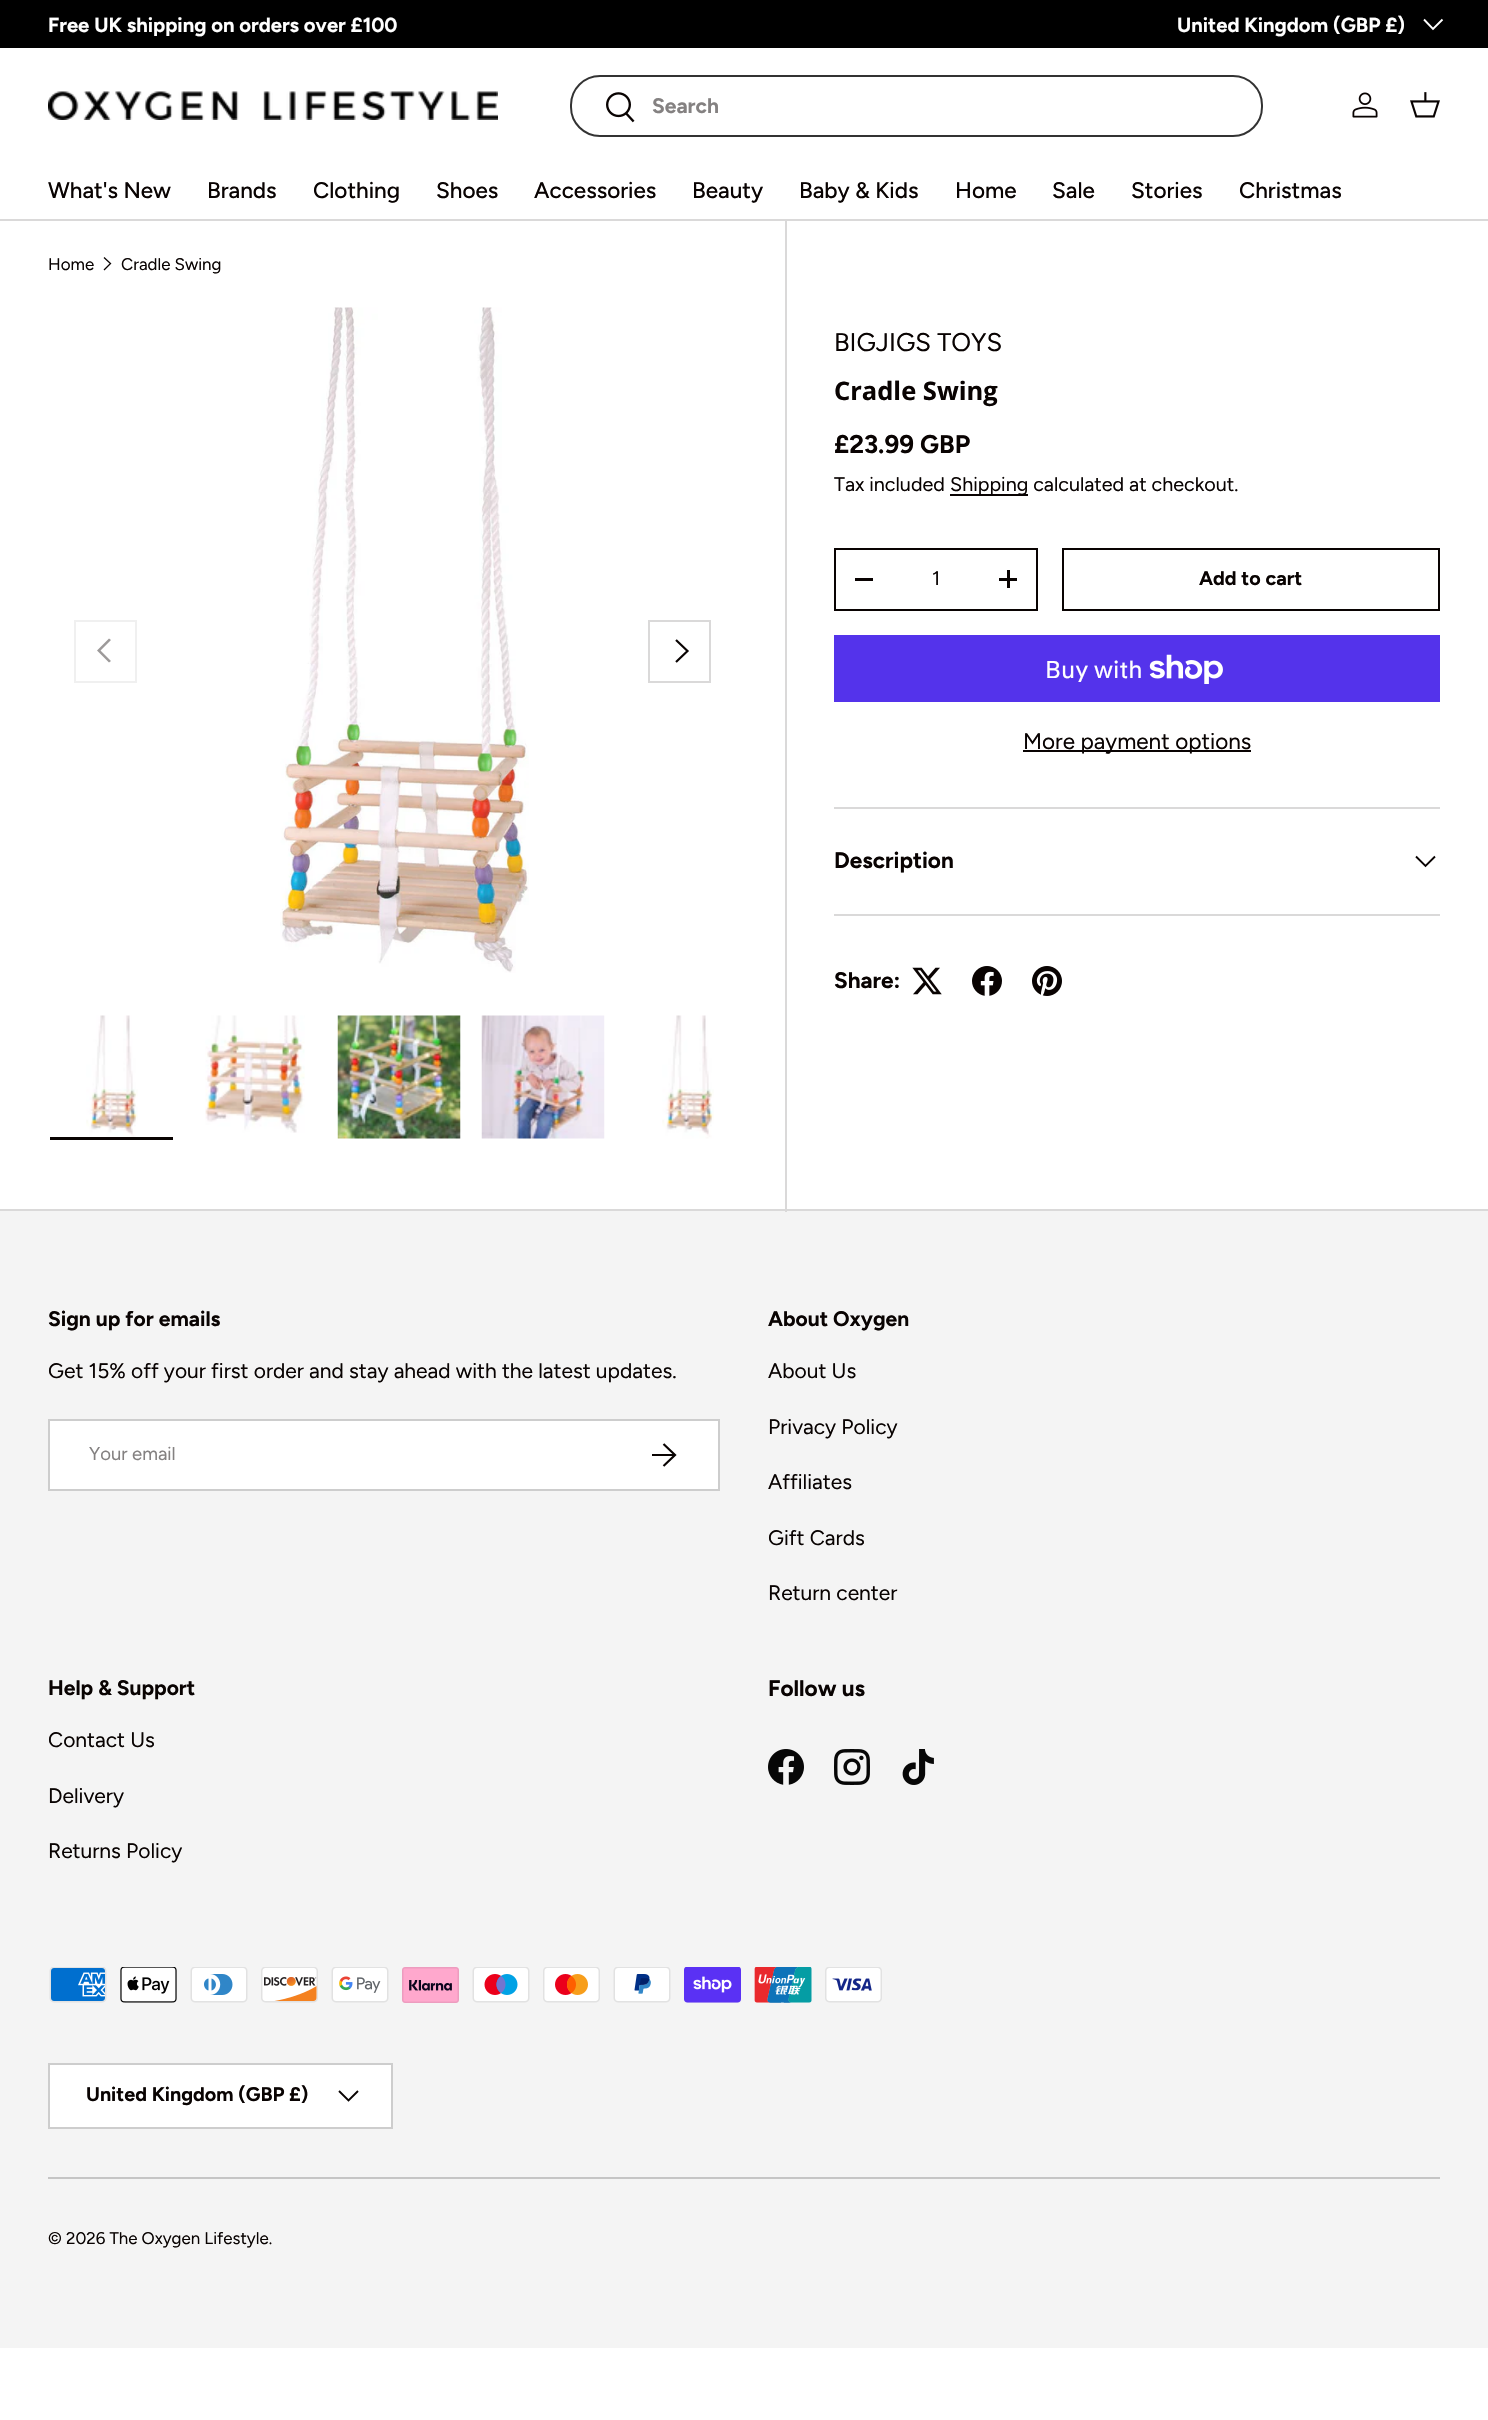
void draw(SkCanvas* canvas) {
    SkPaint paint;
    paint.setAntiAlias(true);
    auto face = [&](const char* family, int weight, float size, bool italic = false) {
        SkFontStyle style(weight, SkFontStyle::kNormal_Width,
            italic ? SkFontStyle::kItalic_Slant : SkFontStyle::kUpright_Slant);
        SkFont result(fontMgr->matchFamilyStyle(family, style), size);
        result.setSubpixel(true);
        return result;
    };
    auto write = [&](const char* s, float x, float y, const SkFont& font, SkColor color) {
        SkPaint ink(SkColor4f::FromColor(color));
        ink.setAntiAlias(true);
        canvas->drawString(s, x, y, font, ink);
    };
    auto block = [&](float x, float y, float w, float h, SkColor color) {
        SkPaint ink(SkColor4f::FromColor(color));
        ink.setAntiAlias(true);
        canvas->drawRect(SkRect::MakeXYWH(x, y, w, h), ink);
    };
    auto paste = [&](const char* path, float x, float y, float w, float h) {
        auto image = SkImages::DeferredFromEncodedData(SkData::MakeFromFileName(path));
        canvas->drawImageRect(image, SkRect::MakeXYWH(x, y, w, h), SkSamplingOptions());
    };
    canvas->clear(SK_ColorWHITE);
    block(0, 0, 1488, 48, SK_ColorBLACK);
    auto kFont1 = face("Figtree", 700, 20.25f);
    write("Free UK shipping on orders over £100", 48, 32, kFont1, SK_ColorWHITE);
    write("United Kingdom (GBP £)", 1177, 32, kFont1, SK_ColorWHITE);
    paint.setStyle(SkPaint::kStroke_Style);
    paint.setStrokeWidth(1.9f);
    paint.setColor(SK_ColorWHITE);
    canvas->drawPath(SkPathBuilder().moveTo(1442.5f, 19.5f).lineTo(1433, 29).lineTo(1424, 19.5f).detach(), paint);
    block(0, 219, 1488, 2, SkColorSetRGB(218, 217, 217));
    paste("pic1.png", 48, 91, 450, 29);
    paint.setStrokeWidth(2);
    paint.setColor(SkColorSetRGB(51, 51, 51));
    canvas->drawRoundRect(SkRect::MakeXYWH(571, 76, 691, 60), 29, 29, paint);
    paste("pic2.png", 606, 92, 29, 31);
    auto kFont2 = face("Figtree", 700, 21);
    write("Search", 652, 113, kFont2, SkColorSetRGB(132, 129, 129));
    paste("pic3.png", 1352, 92, 26, 26);
    paste("pic4.png", 1410, 92, 30, 26);
    auto kFont3 = face("Figtree", 500, 22.5f);
    write("What's New", 48, 198, kFont3, SkColorSetRGB(9, 3, 2));
    write("Brands", 207, 198, kFont3, SkColorSetRGB(9, 3, 2));
    write("Clothing", 313, 198, kFont3, SkColorSetRGB(9, 3, 2));
    write("Shoes", 436, 198, kFont3, SkColorSetRGB(9, 3, 2));
    write("Accessories", 534, 198, kFont3, SkColorSetRGB(9, 3, 2));
    write("Beauty", 692, 198, kFont3, SkColorSetRGB(9, 3, 2));
    write("Baby & Kids", 799, 198, kFont3, SkColorSetRGB(9, 3, 2));
    write("Home", 955, 198, kFont3, SkColorSetRGB(9, 3, 2));
    write("Sale", 1052, 198, kFont3, SkColorSetRGB(9, 3, 2));
    write("Stories", 1131, 198, kFont3, SkColorSetRGB(9, 3, 2));
    write("Christmas", 1239, 198, kFont3, SkColorSetRGB(9, 3, 2));
    auto kFont4 = face("Figtree", 400, 16.9f);
    write("Home", 48, 270, kFont4, SkColorSetRGB(9, 3, 2));
    paint.setStrokeWidth(1.3f);
    paint.setColor(SkColorSetRGB(9, 3, 2));
    canvas->drawPath(SkPathBuilder().moveTo(104, 257.5f).lineTo(110.5f, 263.5f).lineTo(104, 270).detach(), paint);
    write("Cradle Swing", 121, 270, kFont4, SkColorSetRGB(9, 3, 2));
    paste("pic5.png", 280, 307, 249, 666);
    paint.setStrokeWidth(2);
    paint.setColor(SkColorSetRGB(240, 240, 240));
    canvas->drawRect(SkRect::MakeXYWH(75, 621, 61, 61), paint);
    paint.setStyle(SkPaint::kFill_Style);
    paint.setColor(SkColorSetRGB(157, 154, 154));
    canvas->drawPath(SkPathBuilder().moveTo(97, 650.5f).lineTo(109, 638.5f).lineTo(111, 640).lineTo(100.5f, 650.5f).lineTo(111, 661).lineTo(109, 662.5f).close().detach(), paint);
    paint.setStyle(SkPaint::kStroke_Style);
    paint.setColor(SkColorSetRGB(218, 217, 217));
    canvas->drawRect(SkRect::MakeXYWH(649, 621, 61, 61), paint);
    paint.setStrokeWidth(2.2f);
    paint.setColor(SkColorSetRGB(9, 3, 2));
    canvas->drawPath(SkPathBuilder().moveTo(676, 640).lineTo(687.5f, 651).lineTo(676, 662).detach(), paint);
    paste("pic6.png", 86, 1015, 52, 122);
    block(50, 1137, 123, 3, SkColorSetRGB(9, 3, 2));
    paste("pic7.png", 205, 1015, 100, 118);
    paste("pic8.png", 337, 1015, 124, 124);
    paste("pic9.png", 481, 1015, 124, 124);
    paste("pic10.png", 662, 1015, 52, 124);
    block(0, 1209, 1488, 2, SkColorSetRGB(218, 217, 217));
    block(0, 1211, 1488, 1137, SkColorSetRGB(244, 244, 244));
    block(785, 221, 2, 991, SkColorSetRGB(218, 217, 217));
    auto kFont5 = face("Figtree", 400, 25.5f);
    write("BIGJIGS TOYS", 834, 351, kFont5, SkColorSetRGB(9, 3, 2));
    auto kFont6 = face("Open Sans", 700, 25.5f);
    write("Cradle Swing", 834, 400, kFont6, SkColorSetRGB(9, 3, 2));
    auto kFont7 = face("Figtree", 700, 25.5f);
    write("£23.99 GBP", 834, 453, kFont7, SkColorSetRGB(9, 3, 2));
    auto kFont8 = face("Figtree", 400, 19.75f);
    write("Tax included", 834, 491, kFont8, SkColorSetRGB(9, 3, 2));
    block(950, 494, 78, 2, SkColorSetRGB(9, 3, 2));
    write("Shipping calculated at checkout.", 950, 491, kFont8, SkColorSetRGB(9, 3, 2));
    paint.setStrokeWidth(2);
    canvas->drawRect(SkRect::MakeXYWH(835, 549, 202, 61), paint);
    block(855, 578, 18, 3, SkColorSetRGB(9, 3, 2));
    write("1", 932, 585, kFont8, SkColorSetRGB(9, 3, 2));
    block(999, 578, 18, 3, SkColorSetRGB(9, 3, 2));
    block(1007, 570, 3, 18, SkColorSetRGB(9, 3, 2));
    canvas->drawRect(SkRect::MakeXYWH(1063, 549, 376, 61), paint);
    auto kFont9 = face("Figtree", 700, 19.75f);
    write("Add to cart", 1199, 585, kFont9, SkColorSetRGB(9, 3, 2));
    block(834, 635, 606, 67, SkColorSetRGB(84, 51, 235));
    auto kFont10 = face("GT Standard", 400, 24);
    write("Buy with", 1045, 678, kFont10, SK_ColorWHITE);
    paste("pic11.png", 1149, 654, 74, 30);
    block(1023, 750, 228, 2, SkColorSetRGB(9, 3, 2));
    auto kFont11 = face("Figtree", 400, 22.5f);
    write("More payment options", 1023, 749, kFont11, SkColorSetRGB(9, 3, 2));
    block(834, 807, 606, 2, SkColorSetRGB(218, 217, 217));
    block(834, 914, 606, 2, SkColorSetRGB(218, 217, 217));
    auto kFont12 = face("Figtree", 700, 22.5f);
    write("Description", 834, 868, kFont12, SkColorSetRGB(9, 3, 2));
    paint.setStrokeWidth(1.9f);
    canvas->drawPath(SkPathBuilder().moveTo(1435, 856.5f).lineTo(1425.5f, 866).lineTo(1416, 856.5f).detach(), paint);
    write("Share:", 834, 988, kFont12, SkColorSetRGB(9, 3, 2));
    paste("pic12.png", 912, 967, 30, 28);
    paste("pic13.png", 972, 966, 30, 30);
    paste("pic14.png", 1032, 966, 30, 30);
    write("Sign up for emails", 48, 1326, kFont2, SkColorSetRGB(9, 3, 2));
    auto kFont13 = face("Figtree", 400, 21);
    write("Get 15% off your first order and stay ahead with the latest updates.", 48, 1378, kFont13, SkColorSetRGB(9, 3, 2));
    paint.setStyle(SkPaint::kFill_Style);
    paint.setColor(SK_ColorWHITE);
    canvas->drawRect(SkRect::MakeXYWH(49, 1420, 670, 70), paint);
    paint.setStyle(SkPaint::kStroke_Style);
    paint.setStrokeWidth(2);
    paint.setColor(SkColorSetRGB(205, 205, 205));
    canvas->drawRect(SkRect::MakeXYWH(49, 1420, 670, 70), paint);
    auto kFont14 = face("Figtree", 400, 18.5f);
    write("Your email", 89, 1460, kFont14, SkColorSetRGB(132, 129, 129));
    paint.setStrokeWidth(2.2f);
    paint.setColor(SkColorSetRGB(9, 3, 2));
    canvas->drawPath(SkPathBuilder().moveTo(652, 1455).lineTo(674, 1455).moveTo(663.5f, 1444).lineTo(675, 1455).lineTo(663.5f, 1466).detach(), paint);
    write("About Oxygen", 768, 1326, kFont2, SkColorSetRGB(9, 3, 2));
    write("About Us", 768, 1378, kFont13, SkColorSetRGB(9, 3, 2));
    write("Privacy Policy", 768, 1434, kFont13, SkColorSetRGB(9, 3, 2));
    write("Affiliates", 768, 1489, kFont13, SkColorSetRGB(9, 3, 2));
    write("Gift Cards", 768, 1545, kFont13, SkColorSetRGB(9, 3, 2));
    write("Return center", 768, 1600, kFont13, SkColorSetRGB(9, 3, 2));
    write("Help & Support", 48, 1695, kFont2, SkColorSetRGB(9, 3, 2));
    write("Contact Us", 48, 1747, kFont13, SkColorSetRGB(9, 3, 2));
    write("Delivery", 48, 1803, kFont13, SkColorSetRGB(9, 3, 2));
    write("Returns Policy", 48, 1858, kFont13, SkColorSetRGB(9, 3, 2));
    write("Follow us", 768, 1696, kFont12, SkColorSetRGB(9, 3, 2));
    paste("pic15.png", 768, 1749, 36, 36);
    paste("pic16.png", 834, 1749, 36, 36);
    paste("pic17.png", 902, 1749, 32, 36);
    paste("pic18.png", 49, 1967, 58, 36);
    paste("pic19.png", 120, 1967, 57, 36);
    paste("pic20.png", 190, 1967, 58, 36);
    paste("pic21.png", 261, 1967, 57, 36);
    paste("pic22.png", 331, 1967, 58, 36);
    paste("pic23.png", 402, 1967, 57, 36);
    paste("pic24.png", 472, 1967, 58, 36);
    paste("pic25.png", 543, 1967, 57, 36);
    paste("pic26.png", 613, 1967, 58, 36);
    paste("pic27.png", 684, 1967, 57, 36);
    paste("pic28.png", 754, 1967, 58, 36);
    paste("pic29.png", 825, 1967, 57, 36);
    paint.setStyle(SkPaint::kFill_Style);
    paint.setColor(SK_ColorWHITE);
    canvas->drawRect(SkRect::MakeXYWH(49, 2064, 343, 64), paint);
    paint.setStyle(SkPaint::kStroke_Style);
    paint.setStrokeWidth(2);
    paint.setColor(SkColorSetRGB(205, 205, 205));
    canvas->drawRect(SkRect::MakeXYWH(49, 2064, 343, 64), paint);
    write("United Kingdom (GBP £)", 86, 2101, kFont9, SkColorSetRGB(9, 3, 2));
    paint.setStrokeWidth(1.9f);
    paint.setColor(SkColorSetRGB(9, 3, 2));
    canvas->drawPath(SkPathBuilder().moveTo(358, 2091).lineTo(348.5f, 2100.5f).lineTo(339, 2091).detach(), paint);
    block(48, 2177, 1392, 2, SkColorSetRGB(197, 197, 197));
    write("© 2026 The Oxygen Lifestyle.", 48, 2244, kFont4, SkColorSetRGB(9, 3, 2));
}
